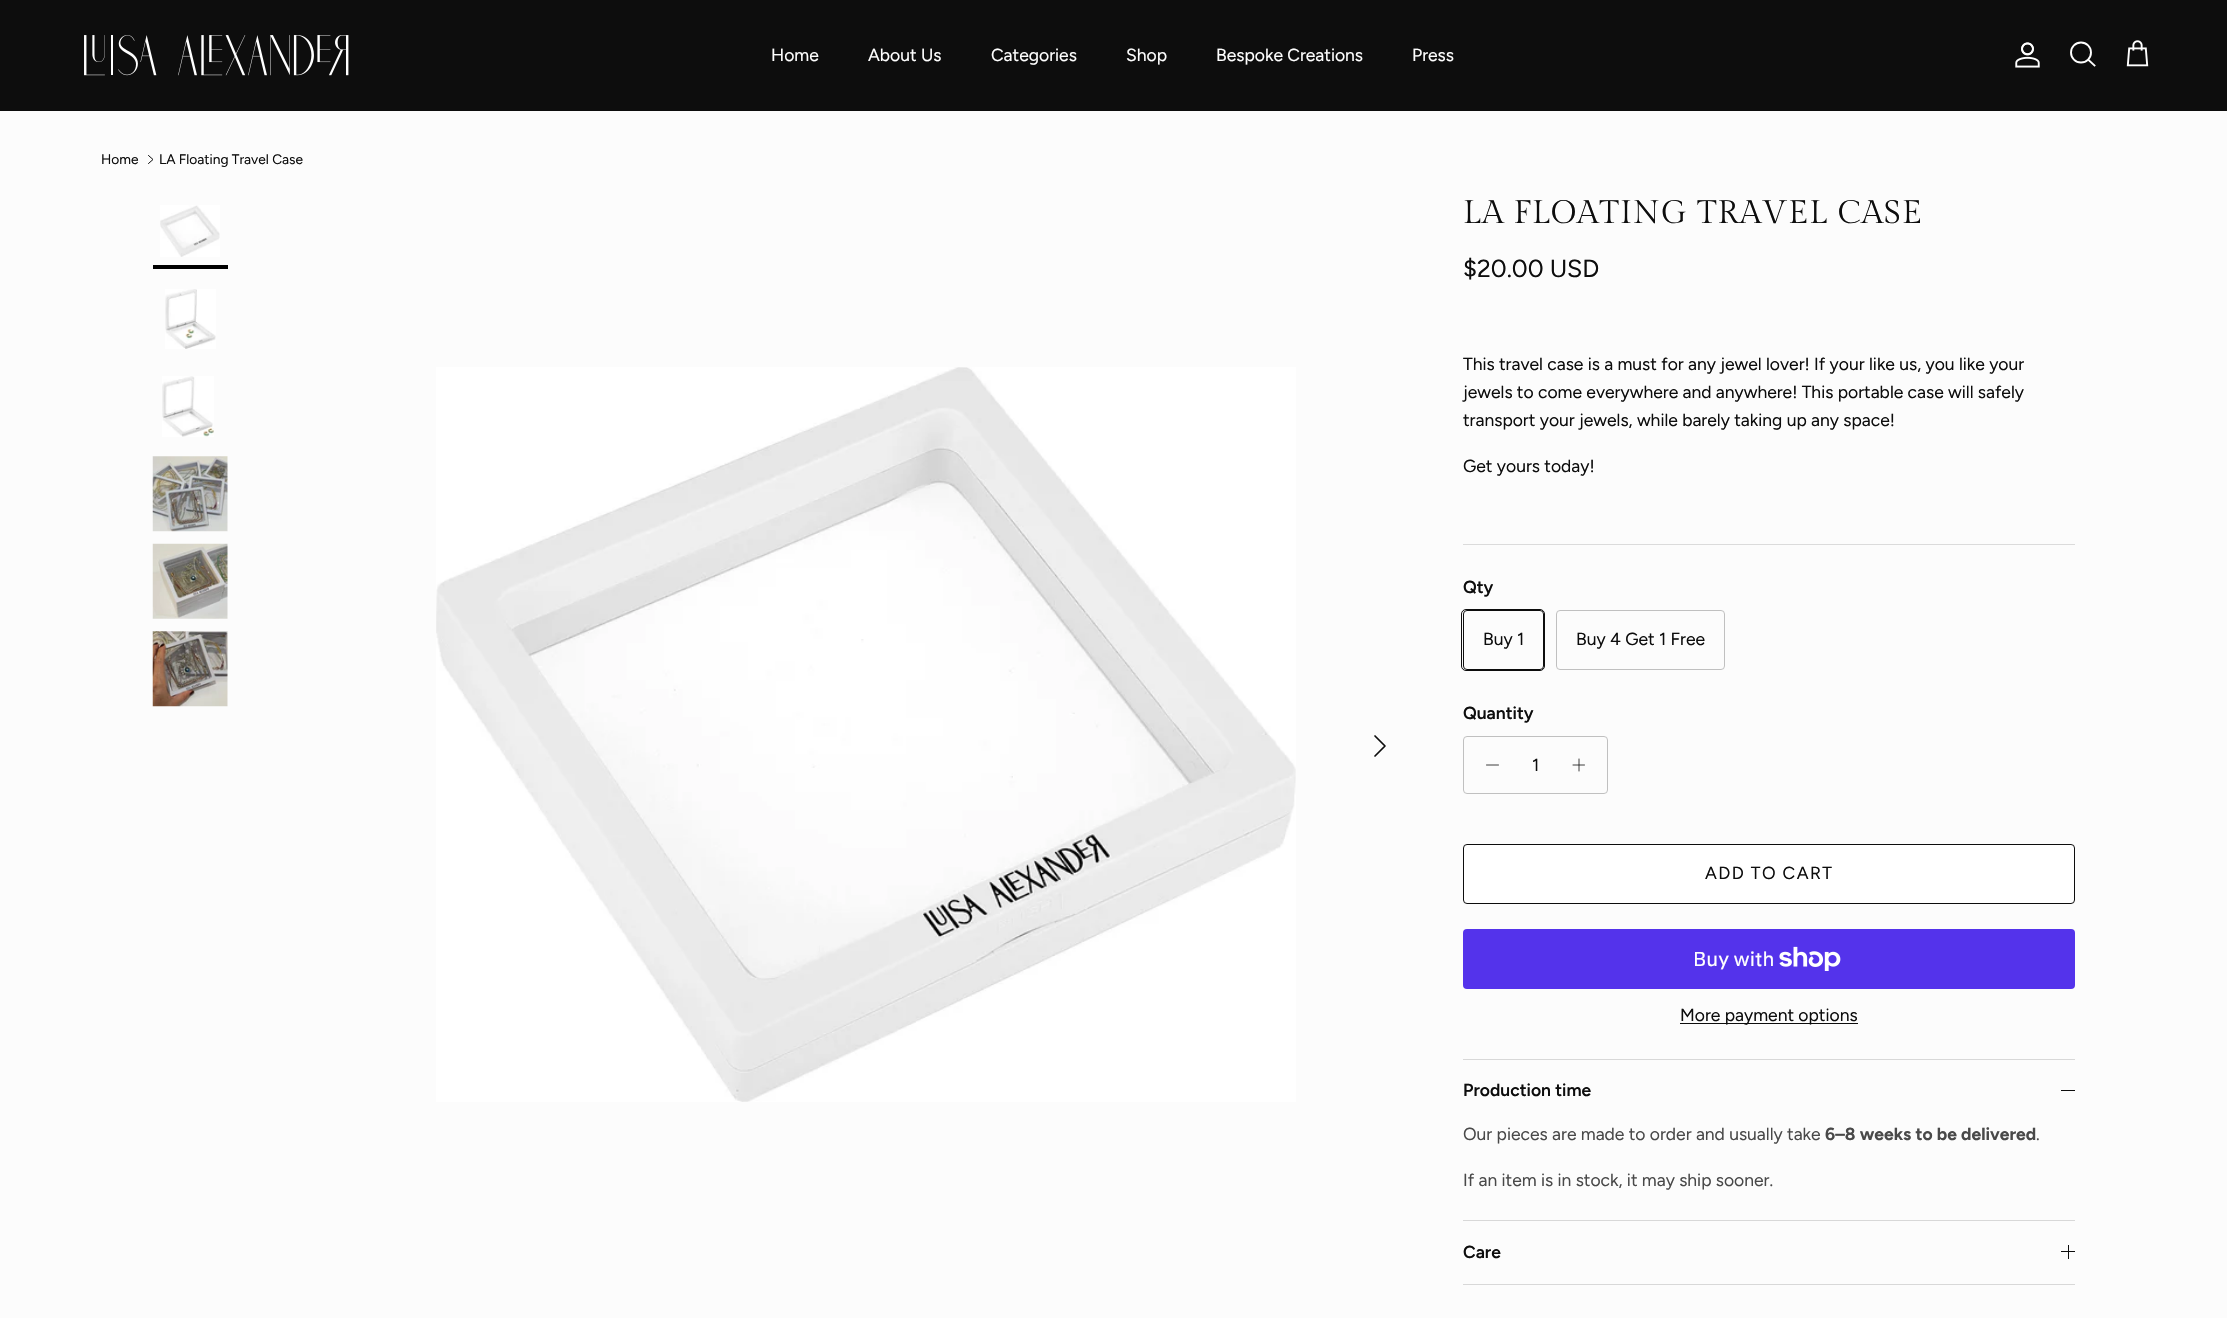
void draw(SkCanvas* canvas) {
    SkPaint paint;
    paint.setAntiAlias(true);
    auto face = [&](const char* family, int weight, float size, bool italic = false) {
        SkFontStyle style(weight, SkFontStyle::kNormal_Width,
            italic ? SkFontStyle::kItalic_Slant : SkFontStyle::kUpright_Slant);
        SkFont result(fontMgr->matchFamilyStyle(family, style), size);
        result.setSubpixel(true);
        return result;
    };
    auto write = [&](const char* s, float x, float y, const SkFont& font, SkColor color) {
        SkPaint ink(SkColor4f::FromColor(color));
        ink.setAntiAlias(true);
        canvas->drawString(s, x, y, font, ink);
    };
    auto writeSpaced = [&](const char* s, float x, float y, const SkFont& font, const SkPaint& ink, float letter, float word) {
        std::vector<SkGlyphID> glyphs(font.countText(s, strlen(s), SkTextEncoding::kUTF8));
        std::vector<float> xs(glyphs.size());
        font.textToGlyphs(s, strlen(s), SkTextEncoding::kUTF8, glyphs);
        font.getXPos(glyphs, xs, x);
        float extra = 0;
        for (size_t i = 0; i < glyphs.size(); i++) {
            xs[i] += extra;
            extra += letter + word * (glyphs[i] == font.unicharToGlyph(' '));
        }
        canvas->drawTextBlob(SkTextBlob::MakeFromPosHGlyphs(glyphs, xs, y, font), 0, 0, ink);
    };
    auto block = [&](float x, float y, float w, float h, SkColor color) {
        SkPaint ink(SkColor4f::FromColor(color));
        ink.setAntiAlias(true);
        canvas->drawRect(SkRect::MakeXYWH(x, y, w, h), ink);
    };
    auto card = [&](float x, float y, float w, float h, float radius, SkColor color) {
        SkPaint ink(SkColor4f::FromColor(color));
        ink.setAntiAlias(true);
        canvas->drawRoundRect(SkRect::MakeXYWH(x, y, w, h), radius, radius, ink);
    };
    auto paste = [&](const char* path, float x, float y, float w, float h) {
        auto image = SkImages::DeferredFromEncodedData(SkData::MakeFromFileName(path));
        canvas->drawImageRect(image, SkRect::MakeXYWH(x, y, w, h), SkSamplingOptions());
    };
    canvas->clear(SkColorSetRGB(252, 252, 252));
    block(0, 0, 2227, 111, SkColorSetRGB(13, 13, 13));
    paste("pic1.png", 84, 35, 265, 41);
    auto kFont1 = face("Figtree", 400, 17.5f);
    write("Home", 771, 61, kFont1, SK_ColorWHITE);
    write("About Us", 868, 61, kFont1, SK_ColorWHITE);
    write("Categories", 991, 61, kFont1, SK_ColorWHITE);
    write("Shop", 1126, 61, kFont1, SK_ColorWHITE);
    write("Bespoke Creations", 1216, 61, kFont1, SK_ColorWHITE);
    write("Press", 1412, 61, kFont1, SK_ColorWHITE);
    paste("pic2.png", 2015, 42, 25, 26);
    paint.setStyle(SkPaint::kStroke_Style);
    paint.setStrokeWidth(1.9f);
    paint.setColor(SK_ColorWHITE);
    canvas->drawCircle(2081, 52.5f, 10, paint);
    paint.setStrokeCap(SkPaint::kSquare_Cap);
    canvas->drawPath(SkPathBuilder().moveTo(2088.5f, 60).lineTo(2094.5f, 65.5f).detach(), paint);
    paste("pic3.png", 2126, 40, 23, 27);
    auto kFont2 = face("Figtree", 400, 13.75f);
    write("Home", 101, 164, kFont2, SkColorSetRGB(13, 13, 13));
    paint.setStrokeWidth(1);
    paint.setStrokeCap(SkPaint::kRound_Cap);
    paint.setStrokeJoin(SkPaint::kRound_Join);
    paint.setColor(SkColorSetRGB(13, 13, 13));
    canvas->drawPath(SkPathBuilder().moveTo(148.5f, 163.5f).lineTo(153, 159.5f).lineTo(148.5f, 155.5f).detach(), paint);
    write("LA Floating Travel Case", 159, 164, kFont2, SkColorSetRGB(13, 13, 13));
    paste("pic4.png", 160, 205, 60, 52);
    block(153, 265, 75, 4, SK_ColorBLACK);
    paste("pic5.png", 165, 289, 51, 60);
    paste("pic6.png", 162, 376, 52, 61);
    paste("pic7.png", 152, 456, 76, 76);
    paste("pic8.png", 152, 543, 76, 76);
    paste("pic9.png", 152, 631, 76, 76);
    paste("pic10.png", 436, 367, 860, 735);
    paint.setStrokeWidth(1.7f);
    canvas->drawPath(SkPathBuilder().moveTo(1375, 756).lineTo(1385, 746).lineTo(1375, 736).detach(), paint);
    auto kFont3 = face("Gilda Display", 400, 32.5f);
    paint.setStyle(SkPaint::kFill_Style);
    writeSpaced("LA FLOATING TRAVEL CASE", 1463, 223, kFont3, paint, 1, 0);
    auto kFont4 = face("Figtree", 400, 24.75f);
    write("$20.00 USD", 1463, 277, kFont4, SkColorSetRGB(13, 13, 13));
    write("This travel case is a must for any jewel lover! If your like us, you like your", 1463, 370, kFont1, SkColorSetRGB(13, 13, 13));
    write("jewels to come everywhere and anywhere! This portable case will safely", 1463, 398, kFont1, SkColorSetRGB(13, 13, 13));
    write("transport your jewels, while barely taking up any space!", 1463, 426, kFont1, SkColorSetRGB(13, 13, 13));
    write("Get yours today!", 1463, 472, kFont1, SkColorSetRGB(13, 13, 13));
    block(1463, 544, 612, 1, SkColorSetRGB(219, 219, 219));
    auto kFont5 = face("Figtree", 600, 17.5f);
    write("Qty", 1463, 593, kFont5, SkColorSetRGB(13, 13, 13));
    paint.setStyle(SkPaint::kStroke_Style);
    paint.setStrokeWidth(1);
    paint.setStrokeCap(SkPaint::kButt_Cap);
    paint.setStrokeJoin(SkPaint::kMiter_Join);
    canvas->drawRoundRect(SkRect::MakeXYWH(1461.5f, 609.5f, 83, 61), 4.5f, 4.5f, paint);
    paint.setStyle(SkPaint::kFill_Style);
    paint.setColor(SkColorSetRGB(252, 252, 252));
    canvas->drawRoundRect(SkRect::MakeXYWH(1463.5f, 610.5f, 80, 59), 3.5f, 3.5f, paint);
    paint.setStyle(SkPaint::kStroke_Style);
    paint.setColor(SkColorSetRGB(13, 13, 13));
    canvas->drawRoundRect(SkRect::MakeXYWH(1463.5f, 610.5f, 80, 59), 3.5f, 3.5f, paint);
    write("Buy 1", 1483, 645, kFont1, SkColorSetRGB(13, 13, 13));
    paint.setColor(SkColorSetRGB(192, 192, 192));
    canvas->drawRoundRect(SkRect::MakeXYWH(1556.5f, 610.5f, 168, 59), 3.5f, 3.5f, paint);
    write("Buy 4 Get 1 Free", 1576, 645, kFont1, SkColorSetRGB(13, 13, 13));
    write("Quantity", 1463, 719, kFont5, SkColorSetRGB(13, 13, 13));
    canvas->drawRoundRect(SkRect::MakeXYWH(1463.5f, 736.5f, 144, 57), 3.5f, 3.5f, paint);
    paint.setStrokeWidth(0.8f);
    paint.setStrokeCap(SkPaint::kRound_Cap);
    paint.setStrokeJoin(SkPaint::kRound_Join);
    paint.setColor(SkColorSetRGB(13, 13, 13));
    canvas->drawPath(SkPathBuilder().moveTo(1486.5f, 765).lineTo(1498.5f, 765).detach(), paint);
    write("1", 1532, 771, kFont1, SkColorSetRGB(13, 13, 13));
    canvas->drawPath(SkPathBuilder().moveTo(1579, 759).lineTo(1579, 771).moveTo(1573, 765).lineTo(1584.5f, 765).detach(), paint);
    paint.setStyle(SkPaint::kFill_Style);
    paint.setColor(SK_ColorWHITE);
    canvas->drawRoundRect(SkRect::MakeXYWH(1463.5f, 844.5f, 611, 59), 3.5f, 3.5f, paint);
    paint.setStyle(SkPaint::kStroke_Style);
    paint.setStrokeWidth(1);
    paint.setStrokeCap(SkPaint::kButt_Cap);
    paint.setStrokeJoin(SkPaint::kMiter_Join);
    paint.setColor(SkColorSetRGB(13, 13, 13));
    canvas->drawRoundRect(SkRect::MakeXYWH(1463.5f, 844.5f, 611, 59), 3.5f, 3.5f, paint);
    paint.setStyle(SkPaint::kFill_Style);
    writeSpaced("ADD TO CART", 1705, 879, kFont1, paint, 1.4f, 0);
    card(1463, 929, 612, 60, 4, SkColorSetRGB(84, 51, 235));
    auto kFont6 = face("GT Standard", 400, 20);
    write("Buy with", 1693, 966, kFont6, SK_ColorWHITE);
    paste("pic11.png", 1779, 946, 62, 25);
    block(1680, 1023, 178, 1, SkColorSetRGB(13, 13, 13));
    write("More payment options", 1680, 1021, kFont1, SkColorSetRGB(13, 13, 13));
    block(1463, 1059, 612, 1, SkColorSetRGB(216, 216, 216));
    block(1463, 1220, 612, 1, SkColorSetRGB(216, 216, 216));
    write("Production time", 1463, 1096, kFont5, SkColorSetRGB(13, 13, 13));
    block(2061, 1090, 14, 1, SkColorSetRGB(13, 13, 13));
    write("Our pieces are made to order and usually take", 1463, 1140, kFont1, SkColorSetRGB(73, 73, 73));
    auto kFont7 = face("Figtree", 700, 17.5f);
    write("6–8 weeks to be delivered", 1825, 1140, kFont7, SkColorSetRGB(73, 73, 73));
    write(".", 2036, 1140, kFont1, SkColorSetRGB(73, 73, 73));
    write("If an item is in stock, it may ship sooner.", 1463, 1186, kFont1, SkColorSetRGB(73, 73, 73));
    block(1463, 1284, 612, 1, SkColorSetRGB(216, 216, 216));
    write("Care", 1463, 1258, kFont5, SkColorSetRGB(13, 13, 13));
    block(2068, 1245, 1, 14, SkColorSetRGB(13, 13, 13));
    block(2061, 1251, 14, 1, SkColorSetRGB(13, 13, 13));
}
